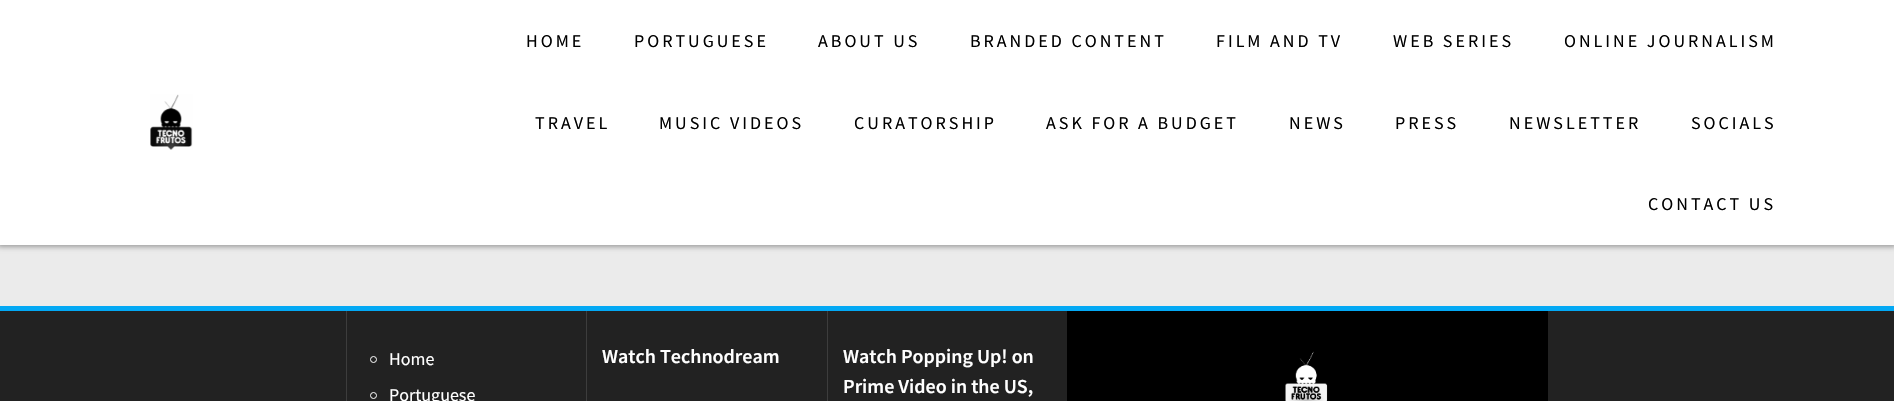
void draw(SkCanvas* canvas) {
    SkPaint paint;
    paint.setAntiAlias(true);
    auto face = [&](const char* family, int weight, float size, bool italic = false) {
        SkFontStyle style(weight, SkFontStyle::kNormal_Width,
            italic ? SkFontStyle::kItalic_Slant : SkFontStyle::kUpright_Slant);
        SkFont result(fontMgr->matchFamilyStyle(family, style), size);
        result.setSubpixel(true);
        return result;
    };
    auto write = [&](const char* s, float x, float y, const SkFont& font, SkColor color) {
        SkPaint ink(SkColor4f::FromColor(color));
        ink.setAntiAlias(true);
        canvas->drawString(s, x, y, font, ink);
    };
    auto writeSpaced = [&](const char* s, float x, float y, const SkFont& font, const SkPaint& ink, float letter, float word) {
        std::vector<SkGlyphID> glyphs(font.countText(s, strlen(s), SkTextEncoding::kUTF8));
        std::vector<float> xs(glyphs.size());
        font.textToGlyphs(s, strlen(s), SkTextEncoding::kUTF8, glyphs);
        font.getXPos(glyphs, xs, x);
        float extra = 0;
        for (size_t i = 0; i < glyphs.size(); i++) {
            xs[i] += extra;
            extra += letter + word * (glyphs[i] == font.unicharToGlyph(' '));
        }
        canvas->drawTextBlob(SkTextBlob::MakeFromPosHGlyphs(glyphs, xs, y, font), 0, 0, ink);
    };
    auto block = [&](float x, float y, float w, float h, SkColor color) {
        SkPaint ink(SkColor4f::FromColor(color));
        ink.setAntiAlias(true);
        canvas->drawRect(SkRect::MakeXYWH(x, y, w, h), ink);
    };
    auto paste = [&](const char* path, float x, float y, float w, float h) {
        auto image = SkImages::DeferredFromEncodedData(SkData::MakeFromFileName(path));
        canvas->drawImageRect(image, SkRect::MakeXYWH(x, y, w, h), SkSamplingOptions());
    };
    canvas->clear(SkColorSetRGB(34, 34, 34));
    block(0, 245, 1894, 61, SkColorSetRGB(235, 235, 235));
    paint.setColor(SkColorSetARGB(84, 0, 0, 0));
    paint.setMaskFilter(SkMaskFilter::MakeBlur(kNormal_SkBlurStyle, 2.5f));
    canvas->drawRect(SkRect::MakeXYWH(-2, -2, 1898, 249), paint);
    paint.setMaskFilter(nullptr);
    block(0, 0, 1894, 245, SK_ColorWHITE);
    paste("pic1.png", 150, 94, 43, 56);
    auto kFont1 = face("Source Sans Pro", 400, 18);
    paint.setColor(SK_ColorBLACK);
    writeSpaced("HOME", 526, 47, kFont1, paint, 3, 0);
    writeSpaced("PORTUGUESE", 634, 47, kFont1, paint, 3, 0);
    writeSpaced("ABOUT US", 818, 47, kFont1, paint, 3, 0);
    writeSpaced("BRANDED CONTENT", 970, 47, kFont1, paint, 3, 0);
    writeSpaced("FILM AND TV", 1216, 47, kFont1, paint, 3, 0);
    writeSpaced("WEB SERIES", 1393, 47, kFont1, paint, 3, 0);
    writeSpaced("ONLINE JOURNALISM", 1564, 47, kFont1, paint, 3, 0);
    writeSpaced("TRAVEL", 535, 129, kFont1, paint, 3, 0);
    writeSpaced("MUSIC VIDEOS", 659, 129, kFont1, paint, 3, 0);
    writeSpaced("CURATORSHIP", 854, 129, kFont1, paint, 3, 0);
    writeSpaced("ASK FOR A BUDGET", 1046, 129, kFont1, paint, 3, 0);
    writeSpaced("NEWS", 1289, 129, kFont1, paint, 3, 0);
    writeSpaced("PRESS", 1395, 129, kFont1, paint, 3, 0);
    writeSpaced("NEWSLETTER", 1509, 129, kFont1, paint, 3, 0);
    writeSpaced("SOCIALS", 1691, 129, kFont1, paint, 3, 0);
    writeSpaced("CONTACT US", 1648, 210, kFont1, paint, 3, 0);
    block(0, 306, 1894, 5, SkColorSetRGB(3, 168, 244));
    block(346, 311, 1, 90, SkColorSetRGB(61, 61, 61));
    paint.setStyle(SkPaint::kStroke_Style);
    paint.setStrokeWidth(1);
    paint.setColor(SK_ColorWHITE);
    canvas->drawCircle(373.5f, 359.5f, 3, paint);
    write("Home", 389, 365, kFont1, SK_ColorWHITE);
    canvas->drawCircle(373.5f, 395.5f, 3, paint);
    write("Portuguese", 389, 401, kFont1, SK_ColorWHITE);
    block(586, 311, 1, 90, SkColorSetRGB(61, 61, 61));
    auto kFont2 = face("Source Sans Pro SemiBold", 600, 20);
    write("Watch Technodream", 602, 363, kFont2, SK_ColorWHITE);
    block(827, 311, 1, 90, SkColorSetRGB(61, 61, 61));
    write("Watch Popping Up! on", 843, 363, kFont2, SK_ColorWHITE);
    write("Prime Video in the US,", 843, 393, kFont2, SK_ColorWHITE);
    block(1067, 311, 481, 90, SK_ColorBLACK);
    paste("pic2.png", 1285, 351, 43, 50);
}
